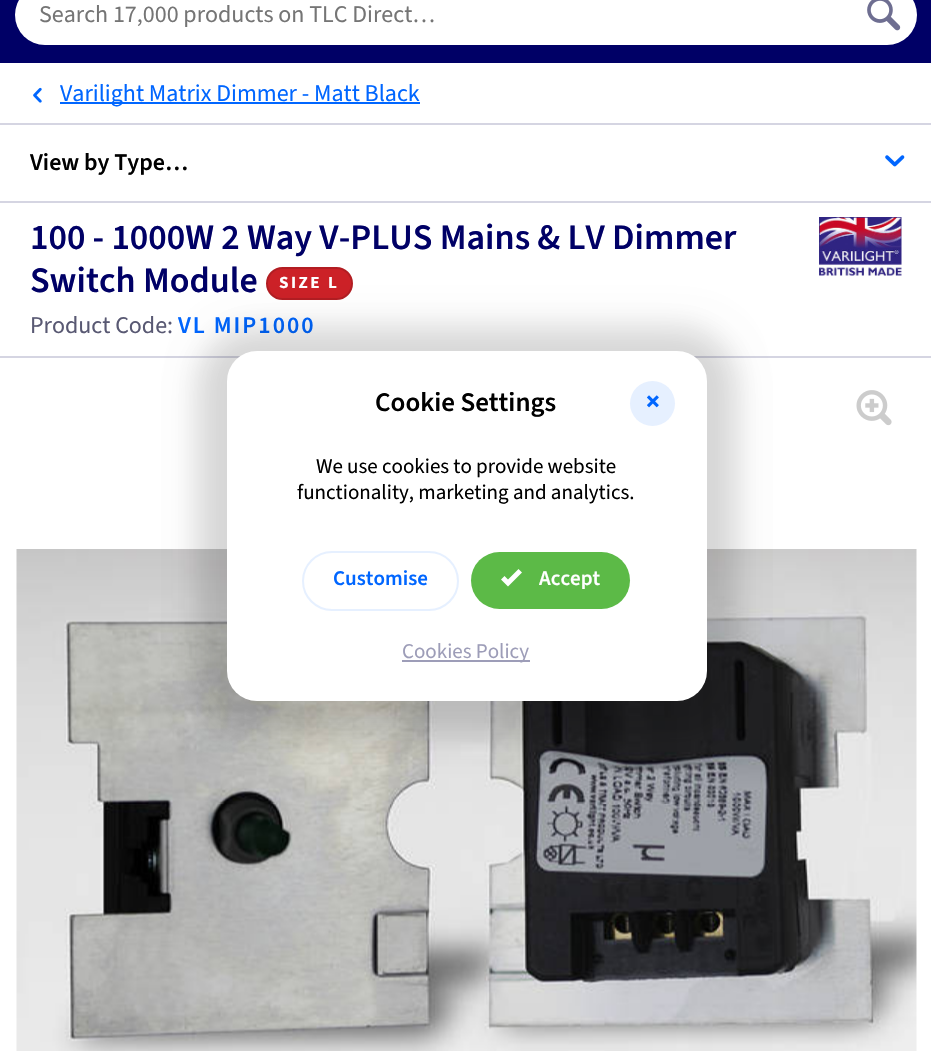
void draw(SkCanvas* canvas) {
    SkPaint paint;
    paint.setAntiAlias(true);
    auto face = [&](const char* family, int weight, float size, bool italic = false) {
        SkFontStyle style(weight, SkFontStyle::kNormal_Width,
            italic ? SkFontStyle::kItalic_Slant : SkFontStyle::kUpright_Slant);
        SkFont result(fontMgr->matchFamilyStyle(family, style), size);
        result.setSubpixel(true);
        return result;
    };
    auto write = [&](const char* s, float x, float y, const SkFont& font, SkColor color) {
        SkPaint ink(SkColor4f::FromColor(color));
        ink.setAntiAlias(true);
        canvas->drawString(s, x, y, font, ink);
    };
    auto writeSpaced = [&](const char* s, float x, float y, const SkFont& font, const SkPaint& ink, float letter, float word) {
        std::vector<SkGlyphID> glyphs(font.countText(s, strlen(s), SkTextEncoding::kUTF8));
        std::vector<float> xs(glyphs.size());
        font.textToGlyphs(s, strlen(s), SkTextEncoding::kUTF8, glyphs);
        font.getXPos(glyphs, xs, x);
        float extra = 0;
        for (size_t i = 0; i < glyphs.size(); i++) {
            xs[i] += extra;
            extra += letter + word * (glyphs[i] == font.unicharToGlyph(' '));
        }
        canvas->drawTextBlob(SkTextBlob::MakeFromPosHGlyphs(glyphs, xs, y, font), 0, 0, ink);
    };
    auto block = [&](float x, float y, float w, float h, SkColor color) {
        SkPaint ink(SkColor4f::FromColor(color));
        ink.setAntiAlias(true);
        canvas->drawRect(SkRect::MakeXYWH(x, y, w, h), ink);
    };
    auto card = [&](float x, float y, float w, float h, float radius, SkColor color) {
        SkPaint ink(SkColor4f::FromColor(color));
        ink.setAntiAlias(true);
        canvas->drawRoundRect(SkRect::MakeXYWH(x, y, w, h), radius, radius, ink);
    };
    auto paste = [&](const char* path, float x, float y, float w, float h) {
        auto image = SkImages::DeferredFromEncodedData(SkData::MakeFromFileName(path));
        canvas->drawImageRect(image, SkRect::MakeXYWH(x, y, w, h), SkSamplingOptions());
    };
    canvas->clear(SK_ColorWHITE);
    block(0, 0, 931, 63, SkColorSetRGB(0, 0, 102));
    card(15, -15, 902, 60, 30, SK_ColorWHITE);
    auto kFont1 = face("Source Sans 3", 400, 24);
    write("Search 17,000 products on TLC Direct…", 39, 22, kFont1, SkColorSetRGB(117, 117, 117));
    paste("pic1.png", 867, 0, 34, 31);
    paste("pic2.png", 33, 87, 9, 16);
    block(60, 102, 360, 2, SkColorSetRGB(0, 102, 255));
    write("Varilight Matrix Dimmer - Matt Black", 60, 101, kFont1, SkColorSetRGB(0, 102, 255));
    block(0, 123, 931, 2, SkColorSetRGB(213, 213, 226));
    block(0, 201, 931, 2, SkColorSetRGB(213, 213, 226));
    auto kFont2 = face("Source Sans 3", 600, 24);
    write("View by Type…", 30, 170, kFont2, SK_ColorBLACK);
    paste("pic3.png", 885, 155, 20, 12);
    auto kFont3 = face("Source Sans 3", 600, 36);
    write("100 - 1000W 2 Way V-PLUS Mains & LV Dimmer", 30, 249, kFont3, SkColorSetRGB(0, 0, 102));
    write("Switch Module", 30, 292, kFont3, SkColorSetRGB(0, 0, 102));
    paint.setColor(SkColorSetRGB(204, 33, 39));
    canvas->drawRoundRect(SkRect::MakeXYWH(267, 268, 85, 31), 15.5f, 15.5f, paint);
    paint.setStyle(SkPaint::kStroke_Style);
    paint.setStrokeWidth(2);
    paint.setColor(SkColorSetRGB(178, 29, 34));
    canvas->drawRoundRect(SkRect::MakeXYWH(267, 268, 85, 31), 15.5f, 15.5f, paint);
    auto kFont4 = face("Source Sans 3", 700, 17);
    paint.setStyle(SkPaint::kFill_Style);
    paint.setColor(SK_ColorWHITE);
    writeSpaced("SIZE", 279, 288, kFont4, paint, 2.5f, 0);
    writeSpaced("L", 328, 288, kFont4, paint, 2.5f, 0);
    write("Product Code:", 30, 333, kFont1, SkColorSetRGB(89, 89, 115));
    paint.setColor(SkColorSetRGB(0, 102, 255));
    writeSpaced("VL MIP1000", 178, 333, kFont2, paint, 2, 0);
    paste("pic4.png", 819, 217, 83, 59);
    block(0, 356, 931, 2, SkColorSetRGB(213, 213, 226));
    paste("pic5.png", 856, 390, 36, 36);
    paste("pic6.png", 16, 549, 901, 502);
    paint.setColor(SkColorSetARGB(10, 0, 0, 0));
    paint.setMaskFilter(SkMaskFilter::MakeBlur(kNormal_SkBlurStyle, 15));
    canvas->drawRoundRect(SkRect::MakeXYWH(197, 321, 540, 410), 60, 60, paint);
    paint.setMaskFilter(nullptr);
    paint.setColor(SkColorSetARGB(31, 0, 0, 0));
    paint.setMaskFilter(SkMaskFilter::MakeBlur(kNormal_SkBlurStyle, 15));
    canvas->drawRoundRect(SkRect::MakeXYWH(197, 329, 540, 409), 60, 60, paint);
    paint.setMaskFilter(nullptr);
    card(227, 351, 480, 350, 30, SK_ColorWHITE);
    auto kFont5 = face("Source Sans 3", 600, 27);
    write("Cookie Settings", 375, 411, kFont5, SK_ColorBLACK);
    paint.setColor(SkColorSetRGB(230, 240, 255));
    canvas->drawCircle(652.5f, 403.5f, 22.5f, paint);
    paste("pic7.png", 647, 395, 12, 13);
    auto kFont6 = face("Source Sans 3", 400, 21);
    write("We use cookies to provide website", 316, 473, kFont6, SK_ColorBLACK);
    write("functionality, marketing and analytics.", 297, 499, kFont6, SK_ColorBLACK);
    paint.setStyle(SkPaint::kStroke_Style);
    canvas->drawRoundRect(SkRect::MakeXYWH(303, 552, 155, 58), 29, 29, paint);
    auto kFont7 = face("Source Sans 3", 600, 21);
    write("Customise", 333, 585, kFont7, SkColorSetRGB(0, 102, 255));
    card(471, 552, 159, 57, 28.5f, SkColorSetRGB(92, 186, 71));
    paint.setStyle(SkPaint::kFill_Style);
    paint.setColor(SK_ColorWHITE);
    canvas->drawPath(SkPathBuilder().moveTo(518.5f, 569).lineTo(508, 579.5f).lineTo(504.5f, 576).lineTo(501, 579.5f).lineTo(508, 586.5f).lineTo(522, 572.5f).close().detach(), paint);
    write("Accept", 539, 585, kFont7, SK_ColorWHITE);
    block(402, 660, 128, 2, SkColorSetRGB(157, 157, 184));
    write("Cookies Policy", 402, 658, kFont6, SkColorSetRGB(157, 157, 184));
}
